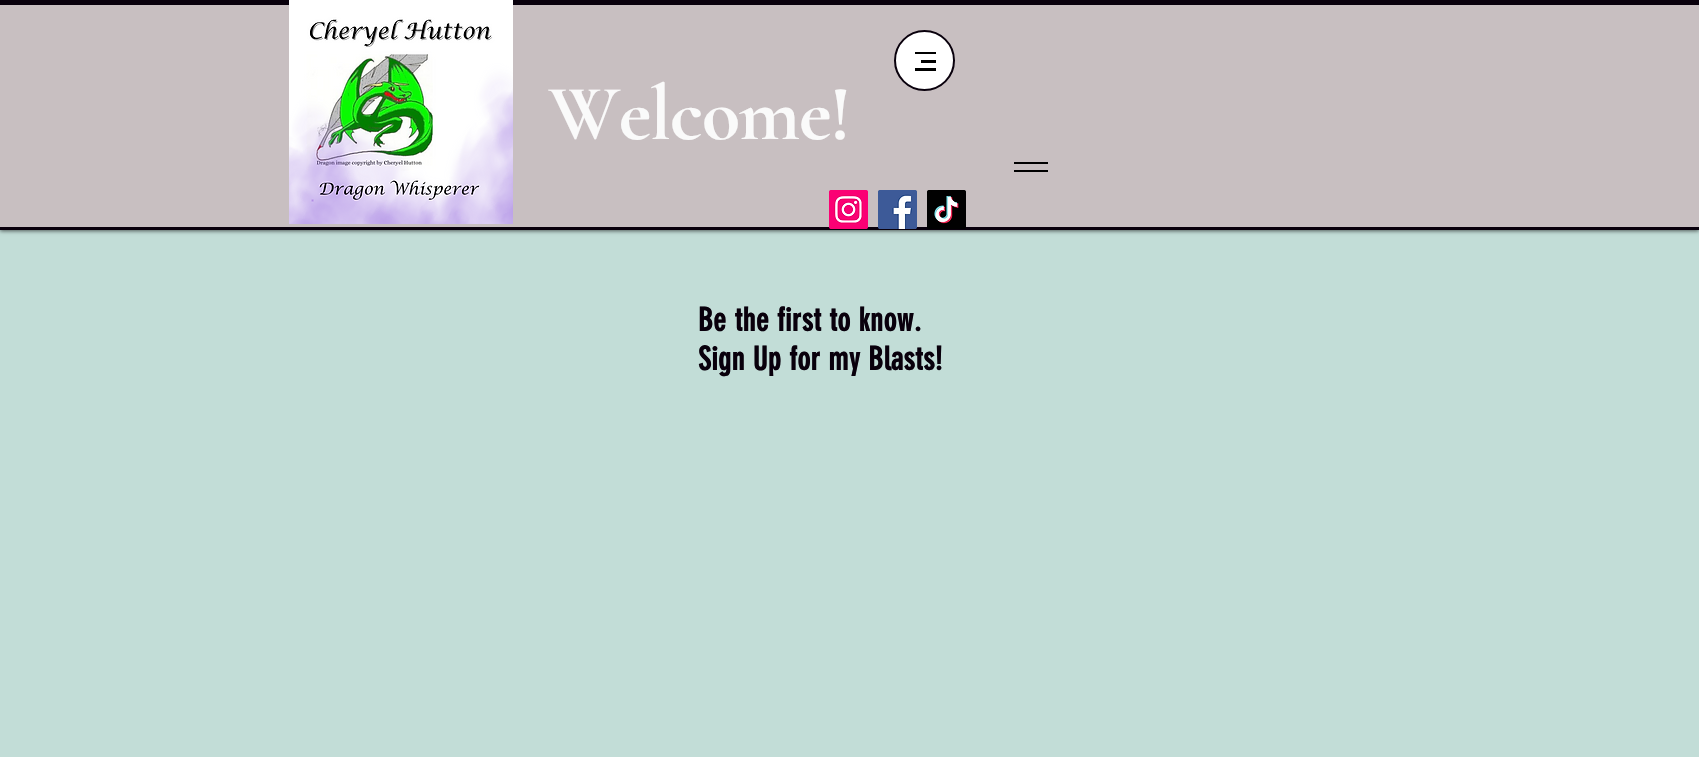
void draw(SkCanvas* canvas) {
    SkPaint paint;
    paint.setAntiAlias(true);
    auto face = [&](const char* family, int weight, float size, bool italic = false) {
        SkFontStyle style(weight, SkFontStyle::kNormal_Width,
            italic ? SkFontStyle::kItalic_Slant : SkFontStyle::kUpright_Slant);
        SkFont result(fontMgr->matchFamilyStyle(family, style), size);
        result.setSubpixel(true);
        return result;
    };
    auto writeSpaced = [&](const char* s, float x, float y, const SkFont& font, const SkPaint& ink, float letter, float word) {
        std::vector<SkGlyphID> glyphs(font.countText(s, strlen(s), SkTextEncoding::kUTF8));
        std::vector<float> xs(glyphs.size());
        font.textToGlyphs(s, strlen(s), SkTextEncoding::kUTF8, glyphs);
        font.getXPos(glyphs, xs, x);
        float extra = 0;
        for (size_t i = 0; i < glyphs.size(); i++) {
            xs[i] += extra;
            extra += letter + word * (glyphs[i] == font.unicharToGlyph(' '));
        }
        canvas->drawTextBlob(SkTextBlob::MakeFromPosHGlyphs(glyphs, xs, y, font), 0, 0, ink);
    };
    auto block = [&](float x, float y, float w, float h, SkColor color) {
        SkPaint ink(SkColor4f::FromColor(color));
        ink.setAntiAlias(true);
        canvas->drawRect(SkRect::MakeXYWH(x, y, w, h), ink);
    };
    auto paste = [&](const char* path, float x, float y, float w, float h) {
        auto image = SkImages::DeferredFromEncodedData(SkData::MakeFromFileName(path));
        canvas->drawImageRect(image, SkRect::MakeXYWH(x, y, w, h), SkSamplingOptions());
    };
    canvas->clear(SkColorSetRGB(194, 221, 215));
    paint.setColor(SkColorSetARGB(153, 0, 0, 0));
    paint.setMaskFilter(SkMaskFilter::MakeBlur(kNormal_SkBlurStyle, 2));
    canvas->drawRect(SkRect::MakeXYWH(0, 1, 1699, 230), paint);
    paint.setMaskFilter(nullptr);
    block(0, 0, 1699, 5, SkColorSetRGB(9, 0, 12));
    block(0, 227, 1699, 3, SkColorSetRGB(9, 0, 12));
    block(0, 5, 1699, 222, SkColorSetRGB(200, 191, 193));
    paste("pic1.png", 289, 0, 224, 224);
    paint.setColor(SK_ColorWHITE);
    canvas->drawCircle(924.5f, 60.5f, 29.5f, paint);
    paint.setStyle(SkPaint::kStroke_Style);
    paint.setStrokeWidth(2);
    paint.setColor(SkColorSetRGB(9, 0, 12));
    canvas->drawCircle(924.5f, 60.5f, 29.5f, paint);
    block(915, 52, 21, 2, SK_ColorBLACK);
    block(921, 60, 15, 3, SK_ColorBLACK);
    block(915, 68, 21, 3, SK_ColorBLACK);
    auto kFont1 = face("Cormorant Garamond", 700, 79);
    paint.setStyle(SkPaint::kFill_Style);
    paint.setColor(SkColorSetRGB(250, 250, 250));
    writeSpaced("Welcome!", 548, 139, kFont1, paint, -1.5f, 0);
    paste("pic2.png", 829, 190, 39, 39);
    paste("pic3.png", 878, 190, 39, 39);
    paste("pic4.png", 927, 190, 39, 39);
    block(1014, 162, 34, 2, SK_ColorBLACK);
    block(1014, 170, 34, 2, SK_ColorBLACK);
    auto kFont2 = face("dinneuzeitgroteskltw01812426", 700, 32);
    paint.setColor(SkColorSetRGB(9, 0, 12));
    writeSpaced("Be the first to know.", 698, 331, kFont2, paint, 0.3f, 0);
    writeSpaced("Sign Up for my Blasts!", 698, 370, kFont2, paint, 0.3f, 0);
}
